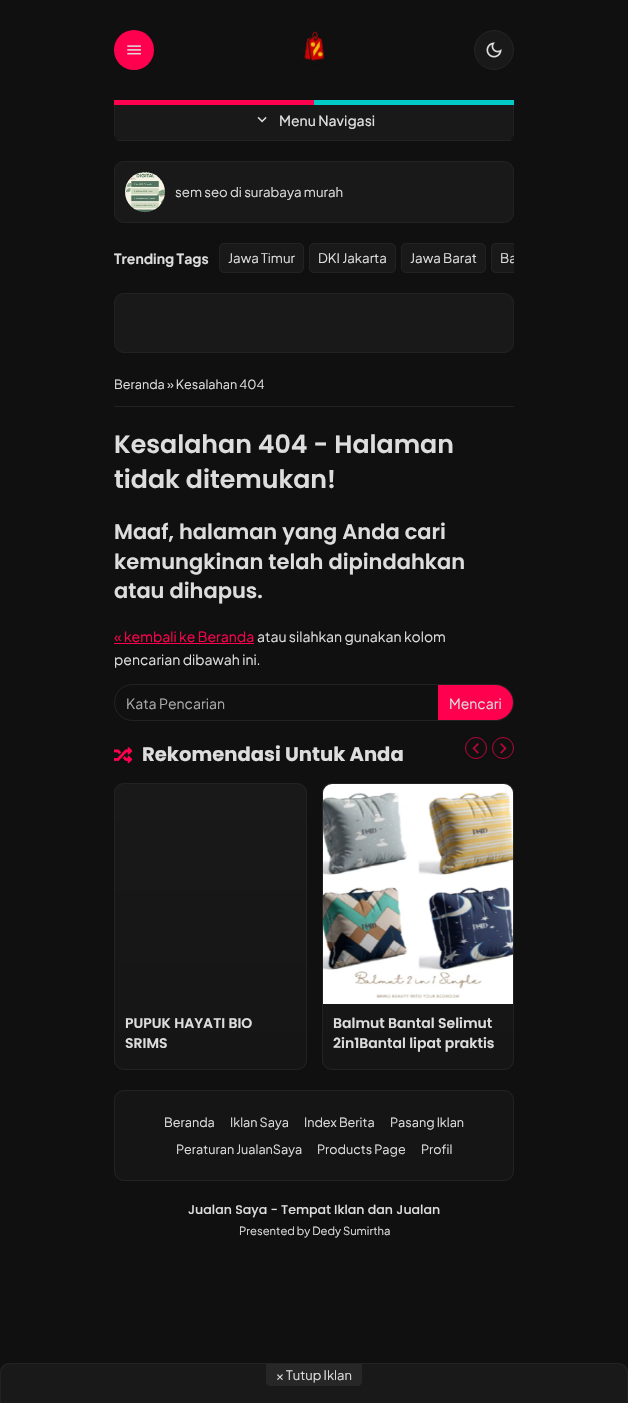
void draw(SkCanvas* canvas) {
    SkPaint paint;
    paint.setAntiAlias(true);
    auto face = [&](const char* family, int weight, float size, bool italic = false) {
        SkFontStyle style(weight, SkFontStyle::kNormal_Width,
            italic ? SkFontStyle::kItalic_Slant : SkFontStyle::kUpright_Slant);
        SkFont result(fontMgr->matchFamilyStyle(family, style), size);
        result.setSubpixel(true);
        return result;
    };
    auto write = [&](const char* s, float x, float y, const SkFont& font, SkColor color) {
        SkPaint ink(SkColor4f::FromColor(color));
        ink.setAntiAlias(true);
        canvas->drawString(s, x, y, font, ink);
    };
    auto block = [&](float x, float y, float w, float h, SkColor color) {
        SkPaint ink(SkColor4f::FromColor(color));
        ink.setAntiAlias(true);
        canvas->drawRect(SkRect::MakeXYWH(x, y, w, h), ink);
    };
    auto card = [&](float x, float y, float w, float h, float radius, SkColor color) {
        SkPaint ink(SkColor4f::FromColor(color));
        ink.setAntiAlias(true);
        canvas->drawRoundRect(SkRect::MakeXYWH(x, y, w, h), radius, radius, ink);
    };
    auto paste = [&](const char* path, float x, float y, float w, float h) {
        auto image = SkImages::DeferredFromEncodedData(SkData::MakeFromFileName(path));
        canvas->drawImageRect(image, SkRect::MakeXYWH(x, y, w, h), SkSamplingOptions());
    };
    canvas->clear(SkColorSetRGB(16, 16, 16));
    paint.setColor(SkColorSetRGB(255, 0, 78));
    canvas->drawCircle(134, 50, 20, paint);
    paste("pic1.png", 127, 45, 14, 10);
    paste("pic2.png", 302, 31, 22, 35);
    paint.setColor(SkColorSetRGB(25, 25, 25));
    canvas->drawCircle(494, 50, 19.5f, paint);
    paint.setStyle(SkPaint::kStroke_Style);
    paint.setStrokeWidth(1);
    paint.setColor(SkColorSetRGB(34, 34, 34));
    canvas->drawCircle(494, 50, 19.5f, paint);
    paste("pic3.png", 486, 42, 16, 16);
    block(513, 100, 1, 36, SkColorSetRGB(34, 34, 34));
    block(114, 100, 1, 36, SkColorSetRGB(34, 34, 34));
    card(115, 101, 398, 40, 5, SkColorSetRGB(25, 25, 25));
    block(114, 100, 200, 5, SkColorSetRGB(255, 0, 78));
    block(314, 100, 200, 5, SkColorSetRGB(0, 204, 197));
    block(118, 140, 393, 1, SkColorSetRGB(34, 34, 34));
    paste("pic4.png", 257, 116, 10, 7);
    auto kFont1 = face("Plus Jakarta Sans", 500, 14);
    write("Menu Navigasi", 279, 126, kFont1, SkColorSetRGB(221, 221, 221));
    paint.setStyle(SkPaint::kFill_Style);
    paint.setColor(SkColorSetRGB(25, 25, 25));
    canvas->drawRoundRect(SkRect::MakeXYWH(114.5f, 161.5f, 399, 61), 9.5f, 9.5f, paint);
    paint.setStyle(SkPaint::kStroke_Style);
    paint.setColor(SkColorSetRGB(34, 34, 34));
    canvas->drawRoundRect(SkRect::MakeXYWH(114.5f, 161.5f, 399, 61), 9.5f, 9.5f, paint);
    paste("pic5.png", 125, 172, 40, 40);
    auto kFont2 = face("Plus Jakarta Sans", 400, 13.25f);
    write("sem seo di surabaya murah", 175, 197, kFont2, SkColorSetRGB(221, 221, 221));
    auto kFont3 = face("Plus Jakarta Sans", 700, 14);
    write("Trending Tags", 114, 264, kFont3, SkColorSetRGB(221, 221, 221));
    paint.setStyle(SkPaint::kFill_Style);
    paint.setColor(SkColorSetRGB(25, 25, 25));
    canvas->drawRoundRect(SkRect::MakeXYWH(219.5f, 243.5f, 84, 29), 4.5f, 4.5f, paint);
    paint.setStyle(SkPaint::kStroke_Style);
    paint.setColor(SkColorSetRGB(34, 34, 34));
    canvas->drawRoundRect(SkRect::MakeXYWH(219.5f, 243.5f, 84, 29), 4.5f, 4.5f, paint);
    write("Jawa Timur", 228, 263, kFont2, SkColorSetRGB(221, 221, 221));
    paint.setStyle(SkPaint::kFill_Style);
    paint.setColor(SkColorSetRGB(25, 25, 25));
    canvas->drawRoundRect(SkRect::MakeXYWH(309.5f, 243.5f, 86, 29), 4.5f, 4.5f, paint);
    paint.setStyle(SkPaint::kStroke_Style);
    paint.setColor(SkColorSetRGB(34, 34, 34));
    canvas->drawRoundRect(SkRect::MakeXYWH(309.5f, 243.5f, 86, 29), 4.5f, 4.5f, paint);
    write("DKI Jakarta", 318, 263, kFont2, SkColorSetRGB(221, 221, 221));
    paint.setStyle(SkPaint::kFill_Style);
    paint.setColor(SkColorSetRGB(25, 25, 25));
    canvas->drawRoundRect(SkRect::MakeXYWH(401.5f, 243.5f, 84, 29), 4.5f, 4.5f, paint);
    paint.setStyle(SkPaint::kStroke_Style);
    paint.setColor(SkColorSetRGB(34, 34, 34));
    canvas->drawRoundRect(SkRect::MakeXYWH(401.5f, 243.5f, 84, 29), 4.5f, 4.5f, paint);
    write("Jawa Barat", 410, 263, kFont2, SkColorSetRGB(221, 221, 221));
    paint.setStyle(SkPaint::kFill_Style);
    paint.setColor(SkColorSetRGB(25, 25, 25));
    canvas->drawPath(SkPathBuilder().moveTo(496, 243).lineTo(514, 243).lineTo(514, 273).lineTo(496, 273).cubicTo(493, 273, 491, 271, 491, 268).lineTo(491, 248).cubicTo(491, 245, 493, 243, 496, 243).close().detach(), paint);
    canvas->save();
    canvas->clipRect(SkRect::MakeXYWH(219, 243, 295, 30));
    paint.setStyle(SkPaint::kStroke_Style);
    paint.setColor(SkColorSetRGB(34, 34, 34));
    canvas->drawRoundRect(SkRect::MakeXYWH(491.5f, 243.5f, 63, 29), 4.5f, 4.5f, paint);
    write("Ba", 500, 263, kFont2, SkColorSetRGB(221, 221, 221));
    canvas->restore();
    paint.setStyle(SkPaint::kFill_Style);
    paint.setColor(SkColorSetRGB(25, 25, 25));
    canvas->drawRoundRect(SkRect::MakeXYWH(114.5f, 293.5f, 399, 59), 9.5f, 9.5f, paint);
    paint.setStyle(SkPaint::kStroke_Style);
    paint.setColor(SkColorSetRGB(34, 34, 34));
    canvas->drawRoundRect(SkRect::MakeXYWH(114.5f, 293.5f, 399, 59), 9.5f, 9.5f, paint);
    block(114, 406, 400, 1, SkColorSetRGB(34, 34, 34));
    auto kFont4 = face("Plus Jakarta Sans", 400, 12.6f);
    write("Beranda » Kesalahan 404", 114, 389, kFont4, SkColorSetRGB(221, 221, 221));
    auto kFont5 = face("Poppins", 600, 25.25f);
    write("Kesalahan 404 - Halaman", 114, 453, kFont5, SkColorSetRGB(221, 221, 221));
    write("tidak ditemukan!", 114, 488, kFont5, SkColorSetRGB(221, 221, 221));
    auto kFont6 = face("Poppins", 600, 21);
    write("Maaf, halaman yang Anda cari", 114, 539, kFont6, SkColorSetRGB(221, 221, 221));
    write("kemungkinan telah dipindahkan", 114, 569, kFont6, SkColorSetRGB(221, 221, 221));
    write("atau dihapus.", 114, 598, kFont6, SkColorSetRGB(221, 221, 221));
    auto kFont7 = face("Plus Jakarta Sans", 400, 14);
    write("« kembali ke Beranda", 114, 642, kFont7, SkColorSetRGB(255, 0, 78));
    block(114, 643, 140, 1, SkColorSetRGB(255, 0, 78));
    write("atau silahkan gunakan kolom", 257, 642, kFont7, SkColorSetRGB(221, 221, 221));
    write("pencarian dibawah ini.", 114, 665, kFont7, SkColorSetRGB(221, 221, 221));
    canvas->drawRoundRect(SkRect::MakeXYWH(114.5f, 684.5f, 399, 36), 18, 18, paint);
    write("Kata Pencarian", 126, 709, kFont7, SkColorSetRGB(170, 170, 170));
    paint.setStyle(SkPaint::kFill_Style);
    paint.setColor(SkColorSetRGB(255, 0, 78));
    canvas->drawPath(SkPathBuilder().moveTo(438, 685).lineTo(495.5f, 685).cubicTo(505, 685, 513, 693, 513, 702.5f).cubicTo(513, 712, 505, 720, 495.5f, 720).lineTo(438, 720).close().detach(), paint);
    write("Mencari", 449, 709, kFont7, SkColorSetRGB(221, 221, 221));
    paste("pic6.png", 114, 747, 19, 17);
    auto kFont8 = face("Poppins", 700, 19.6f);
    write("Rekomendasi Untuk Anda", 142, 761, kFont8, SkColorSetRGB(221, 221, 221));
    paint.setStyle(SkPaint::kStroke_Style);
    paint.setColor(SkColorSetRGB(183, 5, 59));
    canvas->drawCircle(476, 748, 10.5f, paint);
    paste("pic7.png", 472, 743, 7, 11);
    canvas->drawCircle(503, 748, 10.5f, paint);
    paste("pic8.png", 500, 743, 7, 11);
    canvas->save();
    canvas->clipPath(SkPathBuilder().moveTo(124, 783).lineTo(297, 783).cubicTo(302.5f, 783, 307, 787.5f, 307, 793).lineTo(307, 1060).cubicTo(307, 1065.5f, 302.5f, 1070, 297, 1070).lineTo(124, 1070).cubicTo(118.5f, 1070, 114, 1065.5f, 114, 1060).lineTo(114, 793).cubicTo(114, 787.5f, 118.5f, 783, 124, 783).close().detach(), true);
    paint.setStyle(SkPaint::kFill_Style);
    {
        const SkColor colors[] = {SkColorSetRGB(25, 25, 25), SkColorSetRGB(21, 21, 21)};
        const float stops[] = {0, 1};
        const SkPoint ends[] = {{211, 784}, {211, 1069}};
        paint.setShader(SkGradientShader::MakeLinear(ends, colors, stops, 2, SkTileMode::kClamp));
        paint.setAlpha(255);
    }
    canvas->drawRect(SkRect::MakeXYWH(114, 784, 193, 285), paint);
    canvas->restore();
    paint.setStyle(SkPaint::kStroke_Style);
    paint.setShader(nullptr);
    paint.setColor(SkColorSetRGB(34, 34, 34));
    canvas->drawRoundRect(SkRect::MakeXYWH(114.5f, 783.5f, 192, 286), 9.5f, 9.5f, paint);
    auto kFont9 = face("Poppins", 600, 14);
    write("PUPUK HAYATI BIO", 125, 1028, kFont9, SkColorSetRGB(221, 221, 221));
    write("SRIMS", 125, 1048, kFont9, SkColorSetRGB(221, 221, 221));
    canvas->save();
    canvas->clipPath(SkPathBuilder().moveTo(332, 783).lineTo(504, 783).cubicTo(509.5f, 783, 514, 787.5f, 514, 793).lineTo(514, 1060).cubicTo(514, 1065.5f, 509.5f, 1070, 504, 1070).lineTo(332, 1070).cubicTo(326.5f, 1070, 322, 1065.5f, 322, 1060).lineTo(322, 793).cubicTo(322, 787.5f, 326.5f, 783, 332, 783).close().detach(), true);
    paint.setStyle(SkPaint::kFill_Style);
    {
        const SkColor colors[] = {SkColorSetRGB(25, 25, 25), SkColorSetRGB(21, 21, 21)};
        const float stops[] = {0, 1};
        const SkPoint ends[] = {{418, 784}, {418, 1069}};
        paint.setShader(SkGradientShader::MakeLinear(ends, colors, stops, 2, SkTileMode::kClamp));
        paint.setAlpha(255);
    }
    canvas->drawRect(SkRect::MakeXYWH(322, 784, 192, 285), paint);
    canvas->restore();
    paint.setStyle(SkPaint::kStroke_Style);
    paint.setShader(nullptr);
    paint.setColor(SkColorSetRGB(34, 34, 34));
    canvas->drawRoundRect(SkRect::MakeXYWH(322.5f, 783.5f, 191, 286), 9.5f, 9.5f, paint);
    paste("pic9.png", 323, 784, 190, 220);
    write("Balmut Bantal Selimut", 333, 1028, kFont9, SkColorSetRGB(221, 221, 221));
    write("2in1Bantal lipat praktis", 333, 1048, kFont9, SkColorSetRGB(221, 221, 221));
    paint.setStyle(SkPaint::kFill_Style);
    paint.setColor(SkColorSetRGB(21, 21, 21));
    canvas->drawRoundRect(SkRect::MakeXYWH(114.5f, 1090.5f, 399, 90), 9.5f, 9.5f, paint);
    paint.setStyle(SkPaint::kStroke_Style);
    paint.setColor(SkColorSetRGB(34, 34, 34));
    canvas->drawRoundRect(SkRect::MakeXYWH(114.5f, 1090.5f, 399, 90), 9.5f, 9.5f, paint);
    write("Beranda", 164, 1127, kFont4, SkColorSetRGB(221, 221, 221));
    write("Iklan Saya", 230, 1127, kFont4, SkColorSetRGB(221, 221, 221));
    write("Index Berita", 304, 1127, kFont4, SkColorSetRGB(221, 221, 221));
    write("Pasang Iklan", 390, 1127, kFont4, SkColorSetRGB(221, 221, 221));
    write("Peraturan JualanSaya", 176, 1154, kFont4, SkColorSetRGB(221, 221, 221));
    write("Products Page", 317, 1154, kFont4, SkColorSetRGB(221, 221, 221));
    write("Profil", 421, 1154, kFont4, SkColorSetRGB(221, 221, 221));
    auto kFont10 = face("Poppins", 500, 12.6f);
    write("Jualan Saya - Tempat Iklan dan Jualan", 188, 1214, kFont10, SkColorSetRGB(221, 221, 221));
    auto kFont11 = face("Plus Jakarta Sans", 400, 11.25f);
    write("Presented by Dedy Sumirtha", 239, 1235, kFont11, SkColorSetRGB(221, 221, 221));
    paint.setStyle(SkPaint::kFill_Style);
    paint.setColor(SkColorSetRGB(25, 25, 25));
    canvas->drawPath(SkPathBuilder().moveTo(10, 1363).lineTo(618, 1363).cubicTo(623.5f, 1363, 628, 1367.5f, 628, 1373).lineTo(628, 1403).lineTo(0, 1403).lineTo(0, 1373).cubicTo(0, 1367.5f, 4.5f, 1363, 10, 1363).close().detach(), paint);
    paint.setColor(SkColorSetRGB(34, 34, 34));
    canvas->drawPath(SkPathBuilder(SkPathFillType::kEvenOdd).moveTo(10, 1363).lineTo(618, 1363).cubicTo(624, 1363, 628, 1367, 628, 1373).lineTo(628, 1403).lineTo(0, 1403).lineTo(0, 1373).cubicTo(0, 1367, 4, 1363, 10, 1363).close().moveTo(10, 1364).lineTo(618, 1364).cubicTo(623, 1364, 627, 1368, 627, 1373).lineTo(627, 1403).lineTo(1, 1403).lineTo(1, 1373).cubicTo(1, 1368, 5, 1364, 10, 1364).close().detach(), paint);
    paint.setColor(SkColorSetRGB(39, 39, 39));
    canvas->drawPath(SkPathBuilder().moveTo(266, 1364).lineTo(362, 1364).lineTo(362, 1381).cubicTo(362, 1384, 360, 1386, 357, 1386).lineTo(271, 1386).cubicTo(268, 1386, 266, 1384, 266, 1381).close().detach(), paint);
    auto kFont12 = face("Plus Jakarta Sans", 400, 13);
    write("× Tutup Iklan", 276, 1380, kFont12, SkColorSetRGB(221, 221, 221));
}
